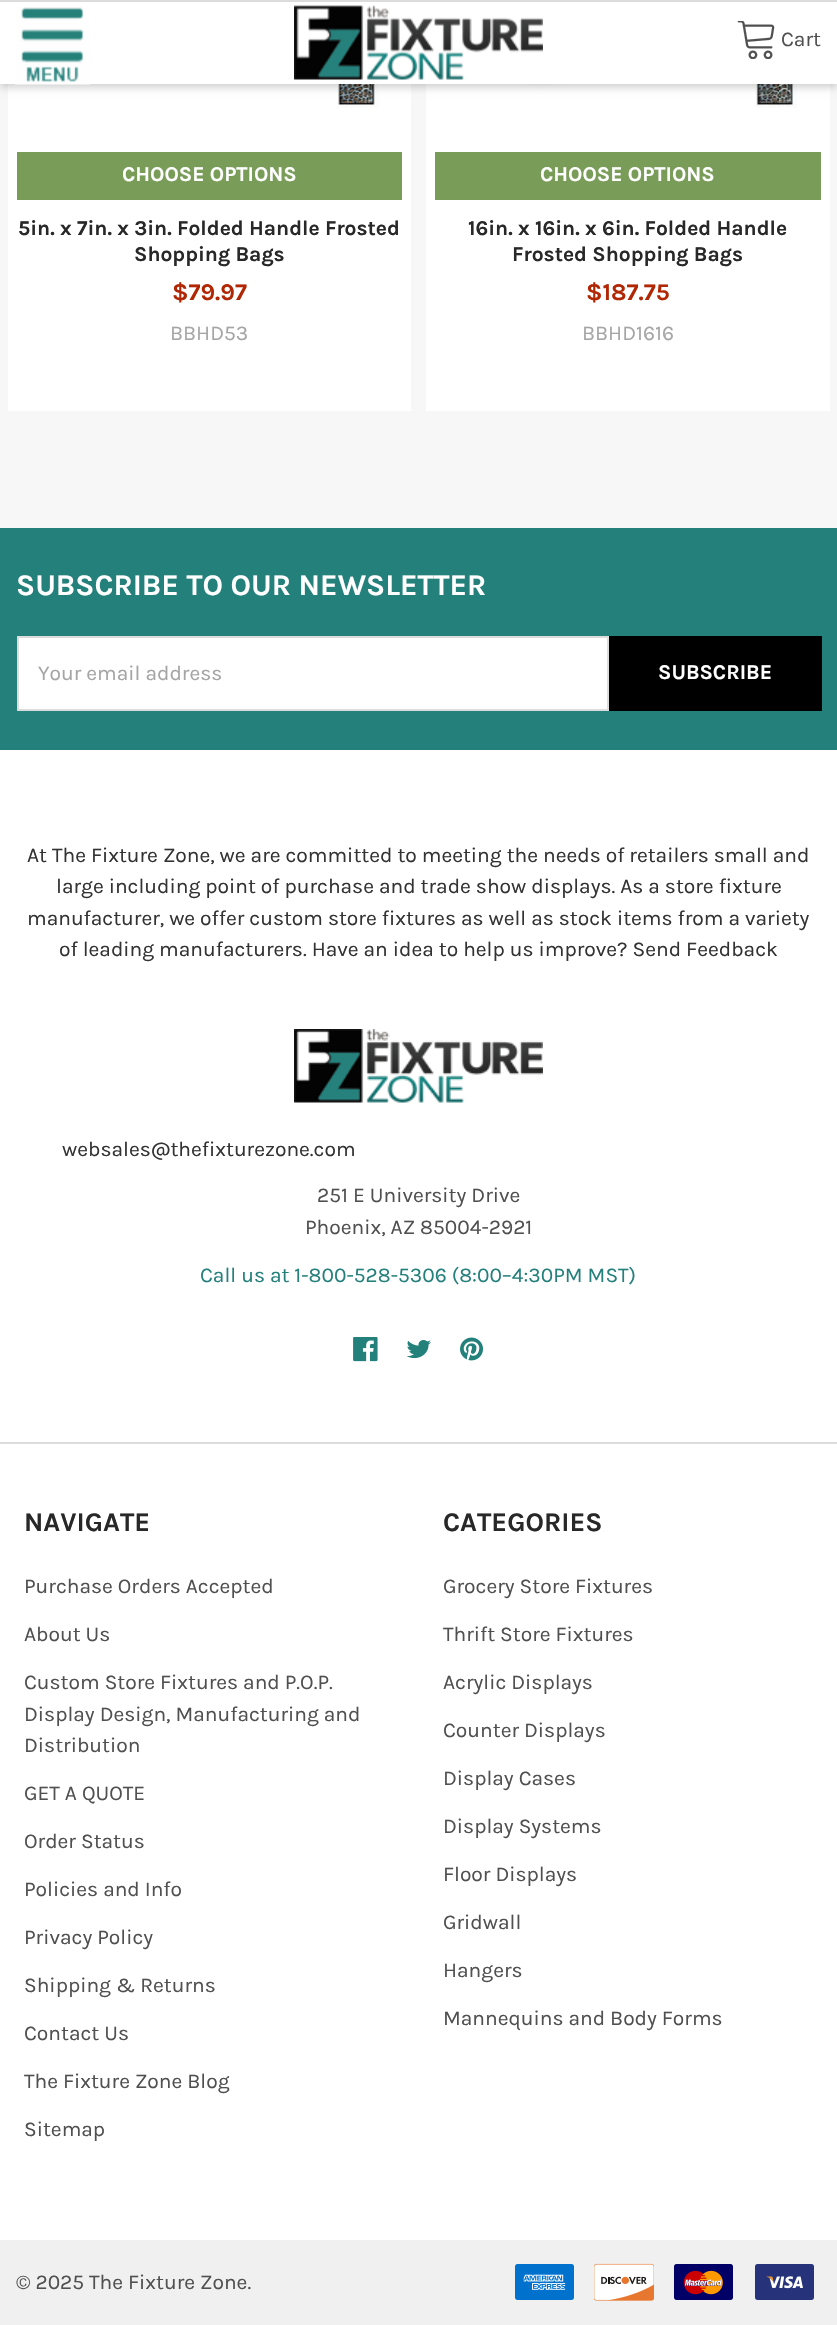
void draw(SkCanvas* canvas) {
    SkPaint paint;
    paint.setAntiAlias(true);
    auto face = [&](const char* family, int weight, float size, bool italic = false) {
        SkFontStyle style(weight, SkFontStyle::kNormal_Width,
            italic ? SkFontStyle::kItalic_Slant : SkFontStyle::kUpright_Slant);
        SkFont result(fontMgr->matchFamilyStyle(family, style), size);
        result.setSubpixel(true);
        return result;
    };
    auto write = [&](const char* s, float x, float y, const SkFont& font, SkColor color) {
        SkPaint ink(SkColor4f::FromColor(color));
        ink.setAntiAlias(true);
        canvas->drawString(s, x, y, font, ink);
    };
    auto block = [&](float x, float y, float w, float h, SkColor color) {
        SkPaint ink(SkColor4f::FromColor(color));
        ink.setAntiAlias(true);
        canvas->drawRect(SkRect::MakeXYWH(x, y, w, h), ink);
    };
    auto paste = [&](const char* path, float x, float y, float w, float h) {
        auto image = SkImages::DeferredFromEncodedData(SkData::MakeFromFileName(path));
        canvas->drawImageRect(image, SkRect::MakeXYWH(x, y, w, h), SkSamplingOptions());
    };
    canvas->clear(SkColorSetRGB(247, 247, 247));
    block(8, 84, 403, 327, SK_ColorWHITE);
    paste("pic4.png", 337, 84, 42, 24);
    block(426, 84, 404, 327, SK_ColorWHITE);
    paste("pic5.png", 480, 84, 317, 24);
    paint.setColor(SkColorSetARGB(51, 0, 0, 0));
    paint.setMaskFilter(SkMaskFilter::MakeBlur(kNormal_SkBlurStyle, 4));
    canvas->drawRect(SkRect::MakeXYWH(0, 3, 837, 84), paint);
    paint.setMaskFilter(nullptr);
    block(0, 2, 837, 82, SK_ColorWHITE);
    block(0, 0, 837, 2, SkColorSetRGB(220, 220, 220));
    paste("pic1.png", 15, 7, 75, 78);
    paste("pic2.png", 294, 5, 249, 75);
    paste("pic3.png", 737, 21, 38, 38);
    auto kFont1 = face("Karla", 400, 21);
    write("Cart", 781, 46, kFont1, SkColorSetRGB(80, 80, 80));
    block(17, 152, 385, 48, SkColorSetRGB(122, 156, 89));
    auto kFont2 = face("Karla", 700, 21);
    write("CHOOSE OPTIONS", 122, 181, kFont2, SK_ColorWHITE);
    write("5in. x 7in. x 3in. Folded Handle Frosted", 18, 235, kFont2, SkColorSetRGB(40, 40, 40));
    write("Shopping Bags", 134, 261, kFont2, SkColorSetRGB(40, 40, 40));
    auto kFont3 = face("Karla", 700, 24);
    write("$79.97", 172, 300, kFont3, SkColorSetRGB(177, 39, 4));
    write("BBHD53", 170, 340, kFont1, SkColorSetRGB(165, 165, 165));
    block(435, 152, 386, 48, SkColorSetRGB(122, 156, 89));
    write("CHOOSE OPTIONS", 540, 181, kFont2, SK_ColorWHITE);
    write("16in. x 16in. x 6in. Folded Handle", 468, 235, kFont2, SkColorSetRGB(40, 40, 40));
    write("Frosted Shopping Bags", 512, 261, kFont2, SkColorSetRGB(40, 40, 40));
    write("$187.75", 586, 300, kFont3, SkColorSetRGB(177, 39, 4));
    write("BBHD1616", 582, 340, kFont1, SkColorSetRGB(165, 165, 165));
    block(0, 750, 837, 1490, SK_ColorWHITE);
    block(0, 528, 837, 222, SkColorSetRGB(36, 128, 123));
    auto kFont4 = face("Karla", 700, 30);
    write("SUBSCRIBE TO OUR NEWSLETTER", 16, 595, kFont4, SK_ColorWHITE);
    paint.setColor(SK_ColorWHITE);
    canvas->drawRect(SkRect::MakeXYWH(18, 637, 590, 73), paint);
    paint.setStyle(SkPaint::kStroke_Style);
    paint.setStrokeWidth(2);
    paint.setColor(SkColorSetRGB(220, 220, 220));
    canvas->drawRect(SkRect::MakeXYWH(18, 637, 590, 73), paint);
    write("Your email address", 38, 680, kFont1, SkColorSetRGB(165, 165, 165));
    block(609, 636, 213, 75, SK_ColorBLACK);
    write("SUBSCRIBE", 658, 679, kFont2, SK_ColorWHITE);
    write("At The Fixture Zone, we are committed to meeting the needs of retailers small and", 27, 862, kFont1, SkColorSetRGB(51, 51, 51));
    write("large including point of purchase and trade show displays. As a store fixture", 56, 893, kFont1, SkColorSetRGB(51, 51, 51));
    write("manufacturer, we offer custom store fixtures as well as stock items from a variety", 27, 925, kFont1, SkColorSetRGB(51, 51, 51));
    write("of leading manufacturers. Have an idea to help us improve? Send Feedback", 59, 956, kFont1, SkColorSetRGB(51, 51, 51));
    block(0, 1442, 837, 2, SkColorSetRGB(220, 220, 220));
    paste("pic6.png", 294, 1029, 249, 74);
    write("websales@thefixturezone.com", 62, 1156, kFont1, SkColorSetRGB(51, 51, 51));
    write("251 E University Drive", 317, 1202, kFont1, SkColorSetRGB(80, 80, 80));
    write("Phoenix, AZ 85004-2921", 305, 1234, kFont1, SkColorSetRGB(80, 80, 80));
    write("Call us at 1-800-528-5306 (8:00–4:30PM MST)", 200, 1282, kFont1, SkColorSetRGB(36, 128, 123));
    paste("pic7.png", 353, 1337, 25, 25);
    paste("pic8.png", 407, 1340, 24, 19);
    paste("pic9.png", 460, 1337, 23, 24);
    auto kFont5 = face("Karla", 700, 27);
    write("NAVIGATE", 24, 1531, kFont5, SkColorSetRGB(40, 40, 40));
    write("Purchase Orders Accepted", 24, 1593, kFont1, SkColorSetRGB(80, 80, 80));
    write("About Us", 24, 1641, kFont1, SkColorSetRGB(80, 80, 80));
    write("Custom Store Fixtures and P.O.P.", 24, 1689, kFont1, SkColorSetRGB(80, 80, 80));
    write("Display Design, Manufacturing and", 24, 1721, kFont1, SkColorSetRGB(80, 80, 80));
    write("Distribution", 24, 1752, kFont1, SkColorSetRGB(80, 80, 80));
    write("GET A QUOTE", 24, 1800, kFont1, SkColorSetRGB(80, 80, 80));
    write("Order Status", 24, 1848, kFont1, SkColorSetRGB(80, 80, 80));
    write("Policies and Info", 24, 1896, kFont1, SkColorSetRGB(80, 80, 80));
    write("Privacy Policy", 24, 1944, kFont1, SkColorSetRGB(80, 80, 80));
    write("Shipping & Returns", 24, 1992, kFont1, SkColorSetRGB(80, 80, 80));
    write("Contact Us", 24, 2040, kFont1, SkColorSetRGB(80, 80, 80));
    write("The Fixture Zone Blog", 24, 2088, kFont1, SkColorSetRGB(80, 80, 80));
    write("Sitemap", 24, 2136, kFont1, SkColorSetRGB(80, 80, 80));
    write("CATEGORIES", 443, 1531, kFont5, SkColorSetRGB(40, 40, 40));
    write("Grocery Store Fixtures", 443, 1593, kFont1, SkColorSetRGB(80, 80, 80));
    write("Thrift Store Fixtures", 443, 1641, kFont1, SkColorSetRGB(80, 80, 80));
    write("Acrylic Displays", 443, 1689, kFont1, SkColorSetRGB(80, 80, 80));
    write("Counter Displays", 443, 1737, kFont1, SkColorSetRGB(80, 80, 80));
    write("Display Cases", 443, 1785, kFont1, SkColorSetRGB(80, 80, 80));
    write("Display Systems", 443, 1833, kFont1, SkColorSetRGB(80, 80, 80));
    write("Floor Displays", 443, 1881, kFont1, SkColorSetRGB(80, 80, 80));
    write("Gridwall", 443, 1929, kFont1, SkColorSetRGB(80, 80, 80));
    write("Hangers", 443, 1977, kFont1, SkColorSetRGB(80, 80, 80));
    write("Mannequins and Body Forms", 443, 2025, kFont1, SkColorSetRGB(80, 80, 80));
    block(0, 2240, 837, 85, SkColorSetRGB(240, 240, 240));
    write("© 2025 The Fixture Zone.", 16, 2289, kFont1, SkColorSetRGB(80, 80, 80));
    paste("pic10.png", 515, 2264, 59, 36);
    paste("pic11.png", 594, 2263, 60, 38);
    paste("pic12.png", 674, 2264, 59, 36);
    paste("pic13.png", 755, 2264, 59, 36);
}
